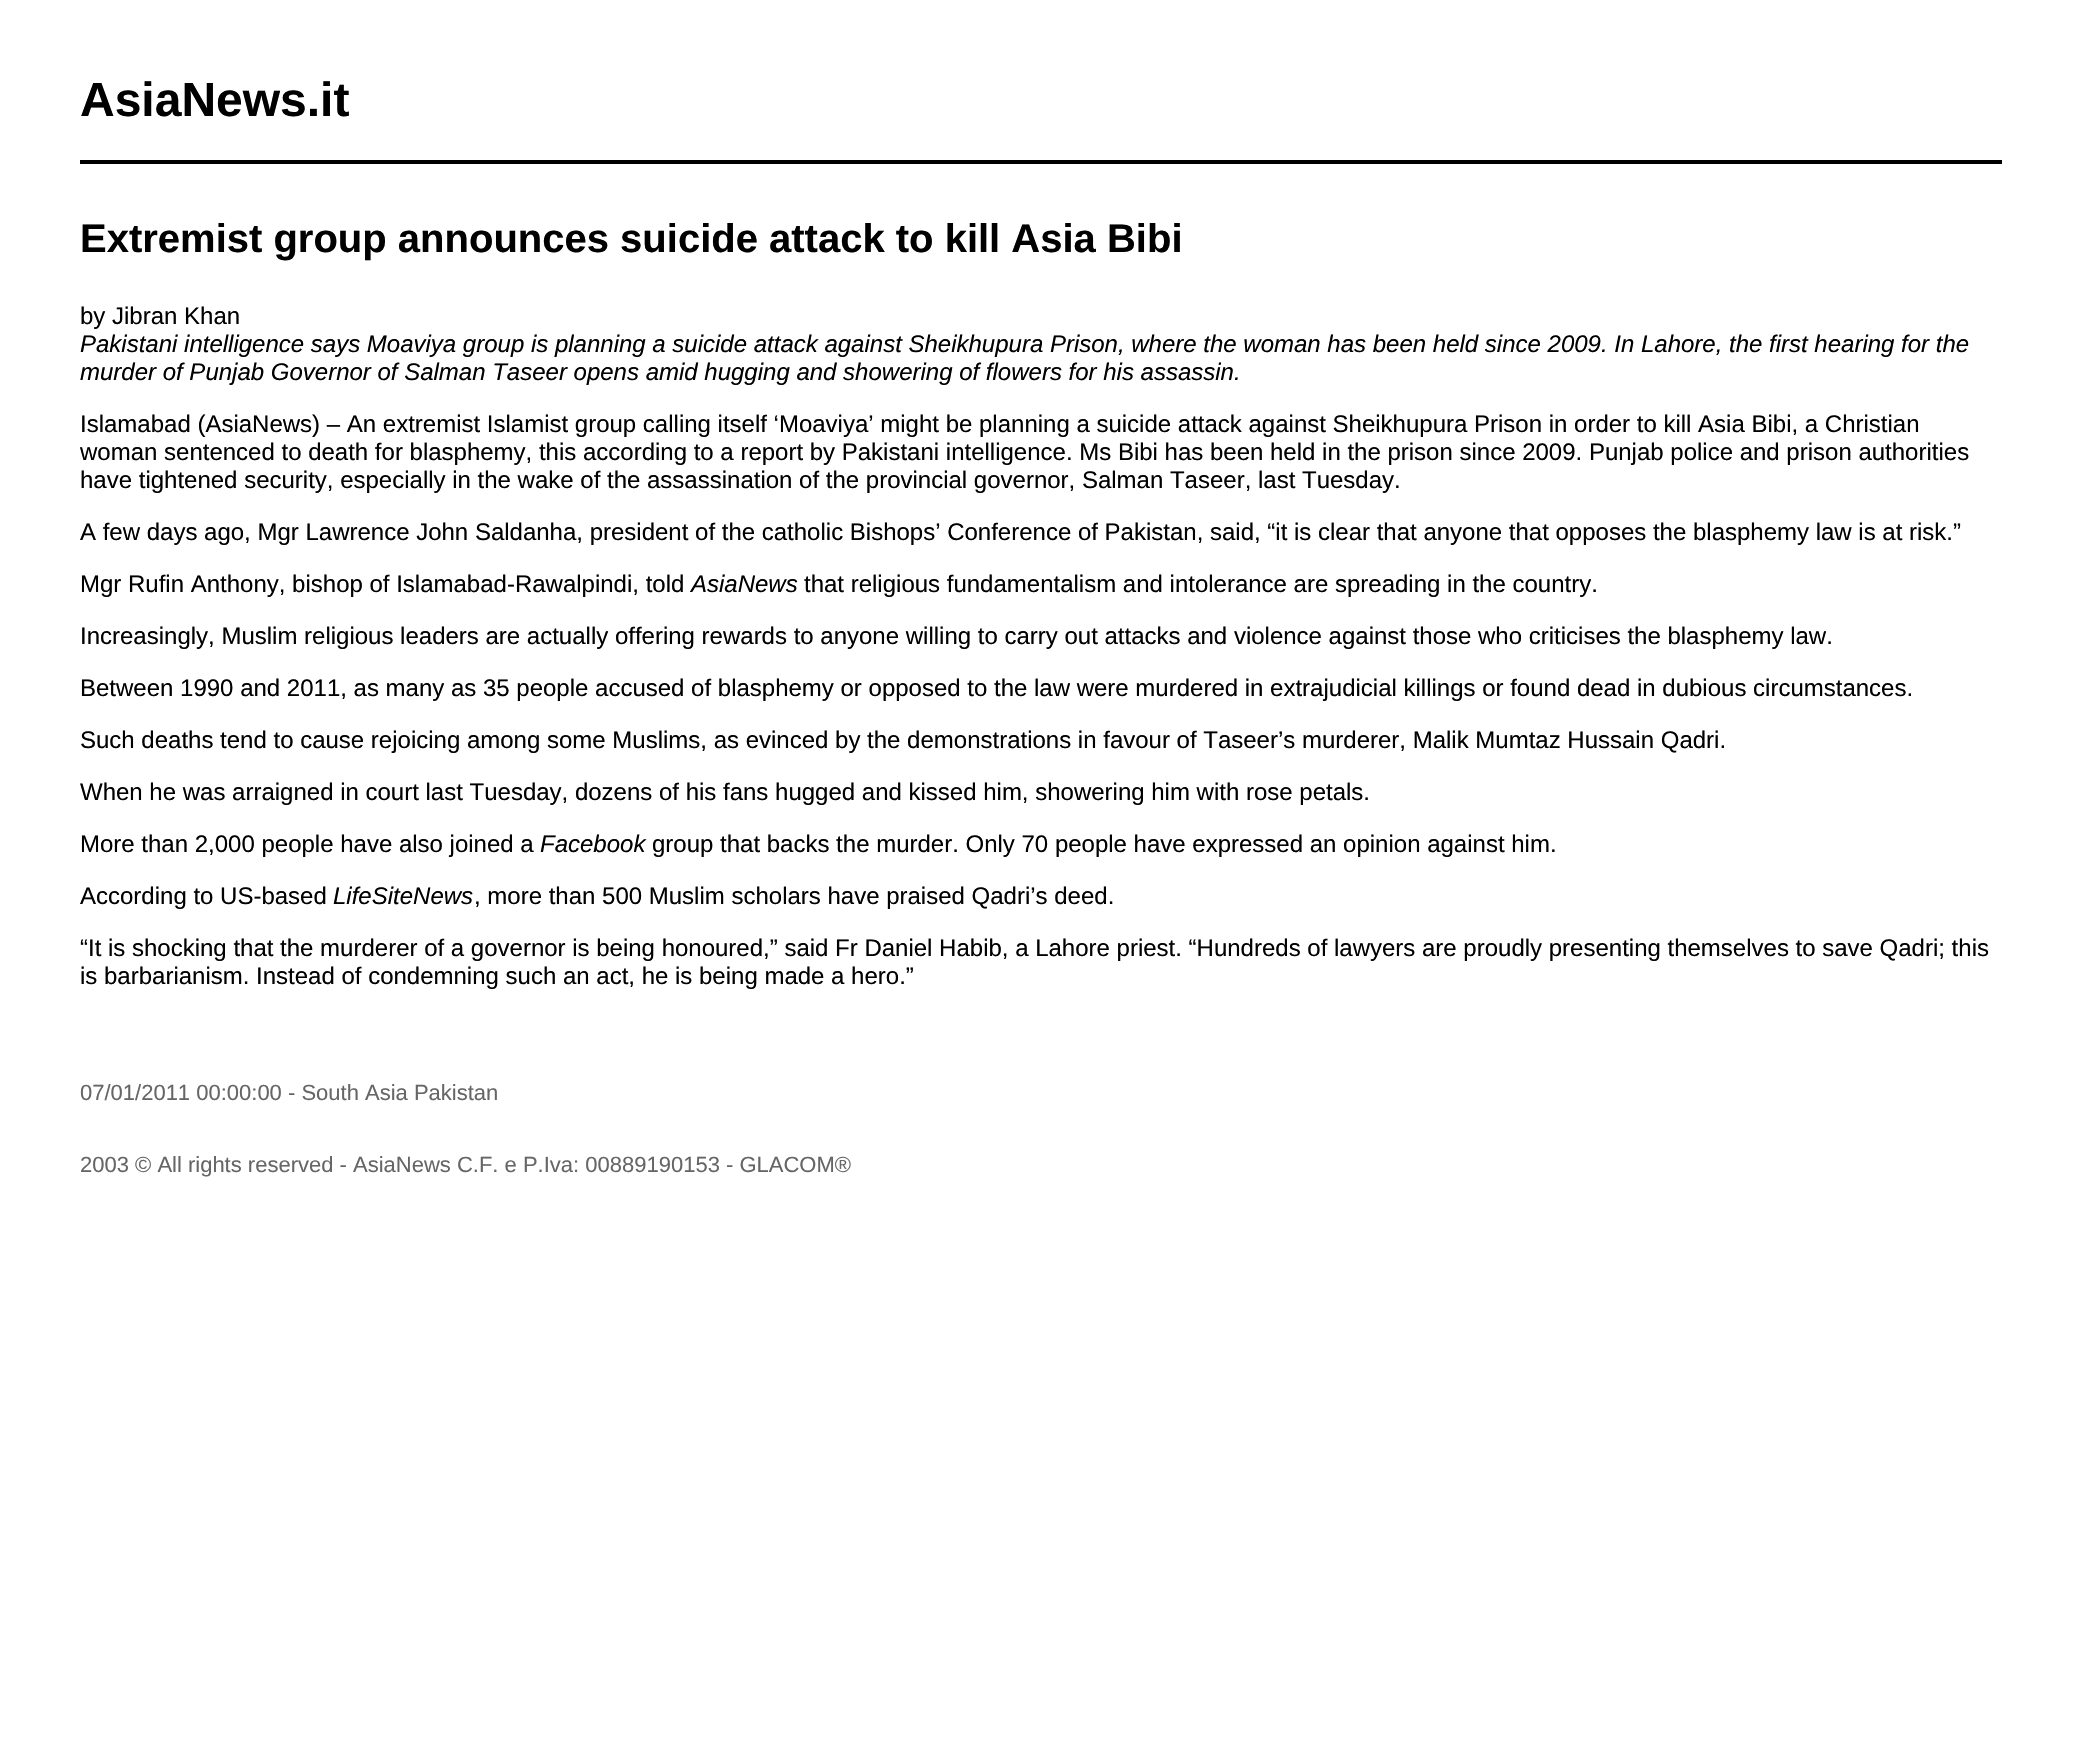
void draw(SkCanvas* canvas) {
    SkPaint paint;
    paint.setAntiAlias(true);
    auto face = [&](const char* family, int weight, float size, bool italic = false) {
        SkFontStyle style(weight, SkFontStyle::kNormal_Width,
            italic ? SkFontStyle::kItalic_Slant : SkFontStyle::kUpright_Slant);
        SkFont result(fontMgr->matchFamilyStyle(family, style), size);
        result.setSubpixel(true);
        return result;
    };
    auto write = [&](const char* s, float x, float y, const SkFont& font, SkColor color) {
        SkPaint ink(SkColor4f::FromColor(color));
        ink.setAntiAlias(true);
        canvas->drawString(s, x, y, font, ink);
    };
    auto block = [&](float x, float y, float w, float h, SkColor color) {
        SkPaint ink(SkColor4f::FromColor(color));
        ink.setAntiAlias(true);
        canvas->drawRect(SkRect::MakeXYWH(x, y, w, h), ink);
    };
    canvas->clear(SK_ColorWHITE);
    auto kFont1 = face("Liberation Sans", 700, 48);
    write("AsiaNews.it", 80, 116, kFont1, SK_ColorBLACK);
    block(80, 160, 1922, 4, SK_ColorBLACK);
    auto kFont2 = face("Liberation Sans", 700, 40);
    write("Extremist group announces suicide attack to kill Asia Bibi", 80, 252, kFont2, SK_ColorBLACK);
    auto kFont3 = face("Liberation Sans", 400, 24);
    write("by Jibran Khan", 80, 324, kFont3, SK_ColorBLACK);
    auto kFont4 = face("Liberation Sans", 400, 24, true);
    write("Pakistani intelligence says Moaviya group is planning a suicide attack against Sheikhupura Prison, where the woman has been held since 2009. In Lahore, the first hearing for the", 80, 352, kFont4, SK_ColorBLACK);
    write("murder of Punjab Governor of Salman Taseer opens amid hugging and showering of flowers for his assassin.", 80, 380, kFont4, SK_ColorBLACK);
    write("Islamabad (AsiaNews) – An extremist Islamist group calling itself ‘Moaviya’ might be planning a suicide attack against Sheikhupura Prison in order to kill Asia Bibi, a Christian", 80, 432, kFont3, SK_ColorBLACK);
    write("woman sentenced to death for blasphemy, this according to a report by Pakistani intelligence. Ms Bibi has been held in the prison since 2009. Punjab police and prison authorities", 80, 460, kFont3, SK_ColorBLACK);
    write("have tightened security, especially in the wake of the assassination of the provincial governor, Salman Taseer, last Tuesday.", 80, 488, kFont3, SK_ColorBLACK);
    write("A few days ago, Mgr Lawrence John Saldanha, president of the catholic Bishops’ Conference of Pakistan, said, “it is clear that anyone that opposes the blasphemy law is at risk.”", 80, 540, kFont3, SK_ColorBLACK);
    write("Mgr Rufin Anthony, bishop of Islamabad-Rawalpindi, told", 80, 592, kFont3, SK_ColorBLACK);
    write("AsiaNews", 691, 592, kFont4, SK_ColorBLACK);
    write("that religious fundamentalism and intolerance are spreading in the country.", 804, 592, kFont3, SK_ColorBLACK);
    write("Increasingly, Muslim religious leaders are actually offering rewards to anyone willing to carry out attacks and violence against those who criticises the blasphemy law.", 80, 644, kFont3, SK_ColorBLACK);
    write("Between 1990 and 2011, as many as 35 people accused of blasphemy or opposed to the law were murdered in extrajudicial killings or found dead in dubious circumstances.", 80, 696, kFont3, SK_ColorBLACK);
    write("Such deaths tend to cause rejoicing among some Muslims, as evinced by the demonstrations in favour of Taseer’s murderer, Malik Mumtaz Hussain Qadri.", 80, 748, kFont3, SK_ColorBLACK);
    write("When he was arraigned in court last Tuesday, dozens of his fans hugged and kissed him, showering him with rose petals.", 80, 800, kFont3, SK_ColorBLACK);
    write("More than 2,000 people have also joined a", 80, 852, kFont3, SK_ColorBLACK);
    write("Facebook", 540, 852, kFont4, SK_ColorBLACK);
    write("group that backs the murder. Only 70 people have expressed an opinion against him.", 652, 852, kFont3, SK_ColorBLACK);
    write("According to US-based", 80, 904, kFont3, SK_ColorBLACK);
    write("LifeSiteNews", 333, 904, kFont4, SK_ColorBLACK);
    write(", more than 500 Muslim scholars have praised Qadri’s deed.", 474, 904, kFont3, SK_ColorBLACK);
    write("“It is shocking that the murderer of a governor is being honoured,” said Fr Daniel Habib, a Lahore priest. “Hundreds of lawyers are proudly presenting themselves to save Qadri; this", 80, 956, kFont3, SK_ColorBLACK);
    write("is barbarianism. Instead of condemning such an act, he is being made a hero.”", 80, 984, kFont3, SK_ColorBLACK);
    auto kFont5 = face("Liberation Sans", 400, 22);
    write("07/01/2011 00:00:00 - South Asia Pakistan", 80, 1100, kFont5, SkColorSetRGB(102, 102, 102));
    write("2003 © All rights reserved - AsiaNews C.F. e P.Iva: 00889190153 - GLACOM®", 80, 1172, kFont5, SkColorSetRGB(102, 102, 102));
}
